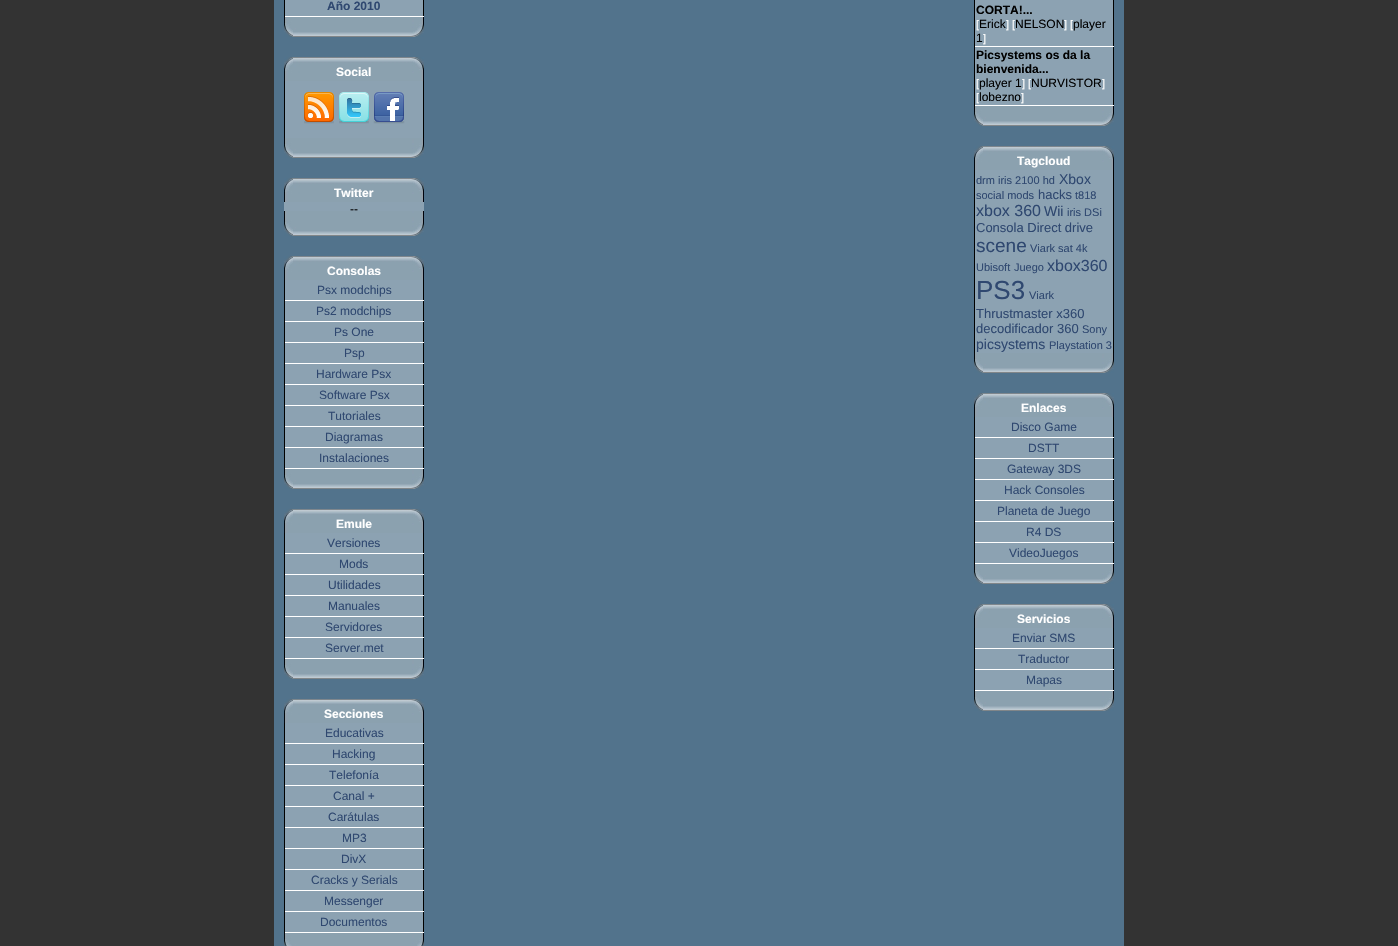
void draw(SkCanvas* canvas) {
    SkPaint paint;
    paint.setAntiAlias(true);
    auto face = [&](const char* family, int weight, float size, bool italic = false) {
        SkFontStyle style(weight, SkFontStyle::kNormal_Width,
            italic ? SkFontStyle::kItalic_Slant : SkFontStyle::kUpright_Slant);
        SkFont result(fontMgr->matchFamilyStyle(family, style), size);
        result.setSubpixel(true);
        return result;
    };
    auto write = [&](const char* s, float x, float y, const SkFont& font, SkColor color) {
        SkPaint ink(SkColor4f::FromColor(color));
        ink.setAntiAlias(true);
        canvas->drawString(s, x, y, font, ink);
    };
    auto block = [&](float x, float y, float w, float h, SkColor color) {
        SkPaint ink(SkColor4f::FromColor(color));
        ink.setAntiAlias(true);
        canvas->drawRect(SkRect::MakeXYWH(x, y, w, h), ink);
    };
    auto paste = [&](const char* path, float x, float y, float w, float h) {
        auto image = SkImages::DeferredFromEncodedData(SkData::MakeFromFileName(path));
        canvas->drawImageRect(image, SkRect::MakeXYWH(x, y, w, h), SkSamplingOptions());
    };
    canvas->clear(SkColorSetRGB(51, 51, 51));
    block(274, 0, 850, 946, SkColorSetRGB(82, 115, 140));
    paste("pic1.png", 284, 17, 140, 20);
    block(285, 0, 138, 16, SkColorSetRGB(140, 162, 178));
    block(423, 0, 1, 17, SK_ColorBLACK);
    block(284, 16, 140, 1, SK_ColorWHITE);
    block(284, 0, 1, 17, SK_ColorBLACK);
    auto kFont1 = face("Liberation Sans", 700, 12);
    write("Año 2010", 327, 10, kFont1, SkColorSetRGB(47, 72, 112));
    paste("pic2.png", 284, 57, 140, 24);
    write("Social", 336, 76, kFont1, SK_ColorWHITE);
    block(285, 81, 138, 57, SkColorSetRGB(140, 162, 178));
    block(423, 81, 1, 57, SK_ColorBLACK);
    block(284, 81, 1, 57, SK_ColorBLACK);
    paste("pic3.png", 304, 92, 30, 32);
    paste("pic4.png", 339, 92, 30, 32);
    paste("pic5.png", 373, 92, 32, 32);
    paste("pic1.png", 284, 138, 140, 20);
    paste("pic2.png", 284, 178, 140, 24);
    write("Twitter", 334, 197, kFont1, SK_ColorWHITE);
    block(284, 202, 140, 9, SkColorSetRGB(140, 162, 178));
    paste("pic6.png", 284, 211, 140, 25);
    auto kFont2 = face("Liberation Sans", 400, 12);
    write("--", 350, 213, kFont2, SK_ColorBLACK);
    paste("pic2.png", 284, 256, 140, 24);
    write("Consolas", 327, 275, kFont1, SK_ColorWHITE);
    block(285, 280, 138, 167, SkColorSetRGB(140, 162, 178));
    paste("pic1.png", 284, 469, 140, 20);
    block(423, 280, 1, 189, SK_ColorBLACK);
    block(284, 300, 140, 1, SK_ColorWHITE);
    block(284, 280, 1, 21, SK_ColorBLACK);
    write("Psx modchips", 317, 294, kFont2, SkColorSetRGB(47, 72, 112));
    block(284, 321, 140, 1, SK_ColorWHITE);
    block(284, 301, 1, 21, SK_ColorBLACK);
    write("Ps2 modchips", 316, 315, kFont2, SkColorSetRGB(47, 72, 112));
    block(284, 342, 140, 1, SK_ColorWHITE);
    block(284, 322, 1, 21, SK_ColorBLACK);
    write("Ps One", 334, 336, kFont2, SkColorSetRGB(47, 72, 112));
    block(284, 363, 140, 1, SK_ColorWHITE);
    block(284, 343, 1, 21, SK_ColorBLACK);
    write("Psp", 344, 357, kFont2, SkColorSetRGB(47, 72, 112));
    block(284, 384, 140, 1, SK_ColorWHITE);
    block(284, 364, 1, 21, SK_ColorBLACK);
    write("Hardware Psx", 316, 378, kFont2, SkColorSetRGB(47, 72, 112));
    block(284, 405, 140, 1, SK_ColorWHITE);
    block(284, 385, 1, 21, SK_ColorBLACK);
    write("Software Psx", 319, 399, kFont2, SkColorSetRGB(47, 72, 112));
    block(284, 426, 140, 1, SK_ColorWHITE);
    block(284, 406, 1, 21, SK_ColorBLACK);
    write("Tutoriales", 328, 420, kFont2, SkColorSetRGB(47, 72, 112));
    block(284, 447, 140, 1, SK_ColorWHITE);
    block(284, 427, 1, 21, SK_ColorBLACK);
    write("Diagramas", 325, 441, kFont2, SkColorSetRGB(47, 72, 112));
    block(285, 448, 138, 20, SkColorSetRGB(140, 162, 178));
    block(284, 468, 140, 1, SK_ColorWHITE);
    block(284, 448, 1, 21, SK_ColorBLACK);
    write("Instalaciones", 319, 462, kFont2, SkColorSetRGB(47, 72, 112));
    paste("pic2.png", 284, 509, 140, 24);
    write("Emule", 336, 528, kFont1, SK_ColorWHITE);
    block(285, 533, 138, 104, SkColorSetRGB(140, 162, 178));
    paste("pic1.png", 284, 659, 140, 20);
    block(423, 533, 1, 126, SK_ColorBLACK);
    block(284, 553, 140, 1, SK_ColorWHITE);
    block(284, 533, 1, 21, SK_ColorBLACK);
    write("Versiones", 327, 547, kFont2, SkColorSetRGB(47, 72, 112));
    block(284, 574, 140, 1, SK_ColorWHITE);
    block(284, 554, 1, 21, SK_ColorBLACK);
    write("Mods", 339, 568, kFont2, SkColorSetRGB(47, 72, 112));
    block(284, 595, 140, 1, SK_ColorWHITE);
    block(284, 575, 1, 21, SK_ColorBLACK);
    write("Utilidades", 328, 589, kFont2, SkColorSetRGB(47, 72, 112));
    block(284, 616, 140, 1, SK_ColorWHITE);
    block(284, 596, 1, 21, SK_ColorBLACK);
    write("Manuales", 328, 610, kFont2, SkColorSetRGB(47, 72, 112));
    block(284, 637, 140, 1, SK_ColorWHITE);
    block(284, 617, 1, 21, SK_ColorBLACK);
    write("Servidores", 325, 631, kFont2, SkColorSetRGB(47, 72, 112));
    block(285, 638, 138, 20, SkColorSetRGB(140, 162, 178));
    block(284, 658, 140, 1, SK_ColorWHITE);
    block(284, 638, 1, 21, SK_ColorBLACK);
    write("Server.met", 325, 652, kFont2, SkColorSetRGB(47, 72, 112));
    paste("pic2.png", 284, 699, 140, 24);
    write("Secciones", 324, 718, kFont1, SK_ColorWHITE);
    block(285, 723, 138, 188, SkColorSetRGB(140, 162, 178));
    paste("pic7.png", 284, 933, 140, 13);
    block(423, 723, 1, 210, SK_ColorBLACK);
    block(284, 743, 140, 1, SK_ColorWHITE);
    block(284, 723, 1, 21, SK_ColorBLACK);
    write("Educativas", 325, 737, kFont2, SkColorSetRGB(47, 72, 112));
    block(284, 764, 140, 1, SK_ColorWHITE);
    block(284, 744, 1, 21, SK_ColorBLACK);
    write("Hacking", 332, 758, kFont2, SkColorSetRGB(47, 72, 112));
    block(284, 785, 140, 1, SK_ColorWHITE);
    block(284, 765, 1, 21, SK_ColorBLACK);
    write("Telefonía", 329, 779, kFont2, SkColorSetRGB(47, 72, 112));
    block(284, 806, 140, 1, SK_ColorWHITE);
    block(284, 786, 1, 21, SK_ColorBLACK);
    write("Canal +", 333, 800, kFont2, SkColorSetRGB(47, 72, 112));
    block(284, 827, 140, 1, SK_ColorWHITE);
    block(284, 807, 1, 21, SK_ColorBLACK);
    write("Carátulas", 328, 821, kFont2, SkColorSetRGB(47, 72, 112));
    block(284, 848, 140, 1, SK_ColorWHITE);
    block(284, 828, 1, 21, SK_ColorBLACK);
    write("MP3", 342, 842, kFont2, SkColorSetRGB(47, 72, 112));
    block(284, 869, 140, 1, SK_ColorWHITE);
    block(284, 849, 1, 21, SK_ColorBLACK);
    write("DivX", 341, 863, kFont2, SkColorSetRGB(47, 72, 112));
    block(284, 890, 140, 1, SK_ColorWHITE);
    block(284, 870, 1, 21, SK_ColorBLACK);
    write("Cracks y Serials", 311, 884, kFont2, SkColorSetRGB(47, 72, 112));
    block(284, 911, 140, 1, SK_ColorWHITE);
    block(284, 891, 1, 21, SK_ColorBLACK);
    write("Messenger", 324, 905, kFont2, SkColorSetRGB(47, 72, 112));
    block(285, 912, 138, 20, SkColorSetRGB(140, 162, 178));
    block(284, 932, 140, 1, SK_ColorWHITE);
    block(284, 912, 1, 21, SK_ColorBLACK);
    write("Documentos", 320, 926, kFont2, SkColorSetRGB(47, 72, 112));
    block(975, 0, 138, 46, SkColorSetRGB(140, 162, 178));
    block(1113, 0, 1, 106, SK_ColorBLACK);
    block(974, 46, 140, 1, SK_ColorWHITE);
    block(974, 0, 1, 47, SK_ColorBLACK);
    write("CORTA!...", 976, 14, kFont1, SK_ColorBLACK);
    auto kFont3 = face("Liberation Sans", 400, 11);
    write("[", 976, 28, kFont3, SK_ColorWHITE);
    write("Erick", 979, 28, kFont2, SK_ColorBLACK);
    write("] [", 1006, 28, kFont3, SK_ColorWHITE);
    write("NELSON", 1015, 28, kFont2, SK_ColorBLACK);
    write("] [", 1064, 28, kFont3, SK_ColorWHITE);
    write("player", 1073, 28, kFont2, SK_ColorBLACK);
    write("1", 976, 42, kFont2, SK_ColorBLACK);
    write("]", 983, 42, kFont3, SK_ColorWHITE);
    block(975, 47, 138, 58, SkColorSetRGB(140, 162, 178));
    block(974, 105, 140, 1, SK_ColorWHITE);
    block(974, 47, 1, 59, SK_ColorBLACK);
    write("Picsystems os da la", 976, 59, kFont1, SK_ColorBLACK);
    write("bienvenida...", 976, 73, kFont1, SK_ColorBLACK);
    write("[", 976, 87, kFont3, SK_ColorWHITE);
    write("player 1", 979, 87, kFont2, SK_ColorBLACK);
    write("] [", 1022, 87, kFont3, SK_ColorWHITE);
    write("NURVISTOR", 1031, 87, kFont2, SK_ColorBLACK);
    write("]", 1102, 87, kFont3, SK_ColorWHITE);
    write("[", 976, 101, kFont3, SK_ColorWHITE);
    write("lobezno", 979, 101, kFont2, SK_ColorBLACK);
    write("]", 1021, 101, kFont3, SK_ColorWHITE);
    paste("pic1.png", 974, 106, 140, 20);
    paste("pic2.png", 974, 146, 140, 24);
    write("Tagcloud", 1017, 165, kFont1, SK_ColorWHITE);
    block(975, 170, 138, 183, SkColorSetRGB(140, 162, 178));
    block(1113, 170, 1, 183, SK_ColorBLACK);
    block(974, 170, 1, 183, SK_ColorBLACK);
    write("drm iris 2100 hd", 976, 184, kFont3, SkColorSetRGB(47, 72, 112));
    auto kFont4 = face("Liberation Sans", 400, 14);
    write("Xbox", 1059, 184, kFont4, SkColorSetRGB(47, 72, 112));
    write("social mods", 976, 199, kFont3, SkColorSetRGB(47, 72, 112));
    auto kFont5 = face("Liberation Sans", 400, 13);
    write("hacks", 1038, 199, kFont5, SkColorSetRGB(47, 72, 112));
    write("t818", 1075, 199, kFont3, SkColorSetRGB(47, 72, 112));
    auto kFont6 = face("Liberation Sans", 400, 16);
    write("xbox 360", 976, 216, kFont6, SkColorSetRGB(47, 72, 112));
    write("Wii", 1044, 216, kFont4, SkColorSetRGB(47, 72, 112));
    write("iris DSi", 1067, 216, kFont3, SkColorSetRGB(47, 72, 112));
    write("Consola Direct drive", 976, 232, kFont5, SkColorSetRGB(47, 72, 112));
    auto kFont7 = face("Liberation Sans", 400, 19);
    write("scene", 976, 252, kFont7, SkColorSetRGB(47, 72, 112));
    write("Viark sat 4k", 1030, 252, kFont3, SkColorSetRGB(47, 72, 112));
    write("Ubisoft", 976, 271, kFont3, SkColorSetRGB(47, 72, 112));
    write("Juego", 1014, 271, kFont3, SkColorSetRGB(47, 72, 112));
    write("xbox360", 1047, 271, kFont6, SkColorSetRGB(47, 72, 112));
    auto kFont8 = face("Liberation Sans", 400, 26);
    write("PS3", 976, 299, kFont8, SkColorSetRGB(47, 72, 112));
    write("Viark", 1029, 299, kFont3, SkColorSetRGB(47, 72, 112));
    write("Thrustmaster x360", 976, 318, kFont5, SkColorSetRGB(47, 72, 112));
    write("decodificador 360", 976, 333, kFont5, SkColorSetRGB(47, 72, 112));
    write("Sony", 1082, 333, kFont3, SkColorSetRGB(47, 72, 112));
    write("picsystems", 976, 349, kFont4, SkColorSetRGB(47, 72, 112));
    write("Playstation 3", 1049, 349, kFont3, SkColorSetRGB(47, 72, 112));
    paste("pic1.png", 974, 353, 140, 20);
    paste("pic2.png", 974, 393, 140, 24);
    write("Enlaces", 1021, 412, kFont1, SK_ColorWHITE);
    block(975, 417, 138, 125, SkColorSetRGB(140, 162, 178));
    paste("pic1.png", 974, 564, 140, 20);
    block(1113, 417, 1, 147, SK_ColorBLACK);
    block(974, 437, 140, 1, SK_ColorWHITE);
    block(974, 417, 1, 21, SK_ColorBLACK);
    write("Disco Game", 1011, 431, kFont2, SkColorSetRGB(47, 72, 112));
    block(974, 458, 140, 1, SK_ColorWHITE);
    block(974, 438, 1, 21, SK_ColorBLACK);
    write("DSTT", 1028, 452, kFont2, SkColorSetRGB(47, 72, 112));
    block(974, 479, 140, 1, SK_ColorWHITE);
    block(974, 459, 1, 21, SK_ColorBLACK);
    write("Gateway 3DS", 1007, 473, kFont2, SkColorSetRGB(47, 72, 112));
    block(974, 500, 140, 1, SK_ColorWHITE);
    block(974, 480, 1, 21, SK_ColorBLACK);
    write("Hack Consoles", 1004, 494, kFont2, SkColorSetRGB(47, 72, 112));
    block(974, 521, 140, 1, SK_ColorWHITE);
    block(974, 501, 1, 21, SK_ColorBLACK);
    write("Planeta de Juego", 997, 515, kFont2, SkColorSetRGB(47, 72, 112));
    block(974, 542, 140, 1, SK_ColorWHITE);
    block(974, 522, 1, 21, SK_ColorBLACK);
    write("R4 DS", 1026, 536, kFont2, SkColorSetRGB(47, 72, 112));
    block(975, 543, 138, 20, SkColorSetRGB(140, 162, 178));
    block(974, 563, 140, 1, SK_ColorWHITE);
    block(974, 543, 1, 21, SK_ColorBLACK);
    write("VideoJuegos", 1009, 557, kFont2, SkColorSetRGB(47, 72, 112));
    paste("pic2.png", 974, 604, 140, 24);
    write("Servicios", 1017, 623, kFont1, SK_ColorWHITE);
    block(975, 628, 138, 41, SkColorSetRGB(140, 162, 178));
    paste("pic1.png", 974, 691, 140, 20);
    block(1113, 628, 1, 63, SK_ColorBLACK);
    block(974, 648, 140, 1, SK_ColorWHITE);
    block(974, 628, 1, 21, SK_ColorBLACK);
    write("Enviar SMS", 1012, 642, kFont2, SkColorSetRGB(47, 72, 112));
    block(974, 669, 140, 1, SK_ColorWHITE);
    block(974, 649, 1, 21, SK_ColorBLACK);
    write("Traductor", 1018, 663, kFont2, SkColorSetRGB(47, 72, 112));
    block(975, 670, 138, 20, SkColorSetRGB(140, 162, 178));
    block(974, 690, 140, 1, SK_ColorWHITE);
    block(974, 670, 1, 21, SK_ColorBLACK);
    write("Mapas", 1026, 684, kFont2, SkColorSetRGB(47, 72, 112));
}
